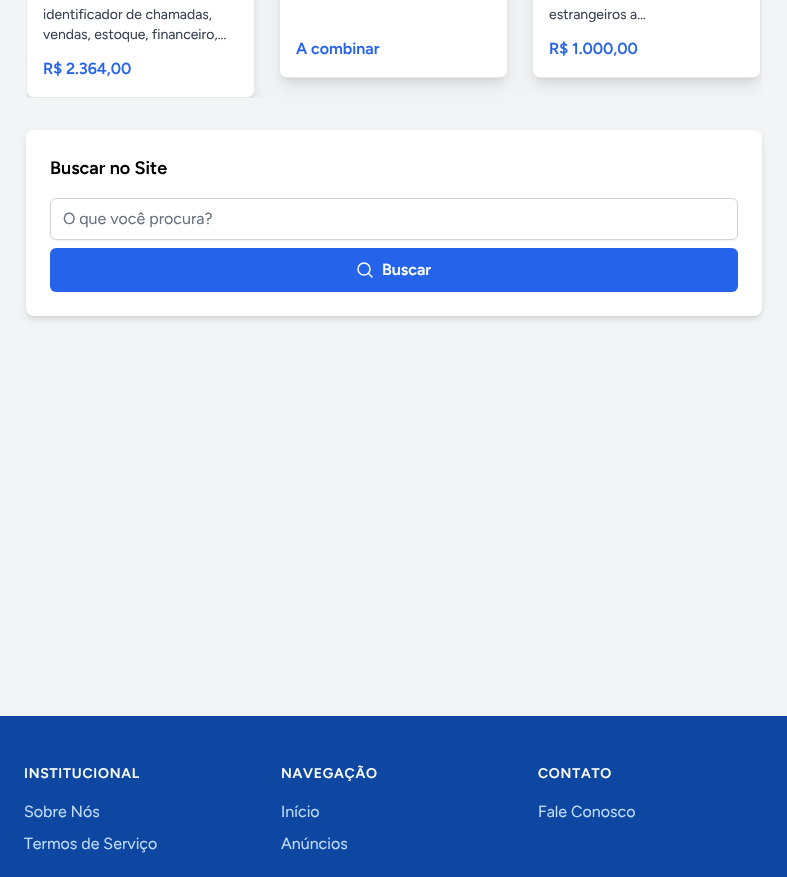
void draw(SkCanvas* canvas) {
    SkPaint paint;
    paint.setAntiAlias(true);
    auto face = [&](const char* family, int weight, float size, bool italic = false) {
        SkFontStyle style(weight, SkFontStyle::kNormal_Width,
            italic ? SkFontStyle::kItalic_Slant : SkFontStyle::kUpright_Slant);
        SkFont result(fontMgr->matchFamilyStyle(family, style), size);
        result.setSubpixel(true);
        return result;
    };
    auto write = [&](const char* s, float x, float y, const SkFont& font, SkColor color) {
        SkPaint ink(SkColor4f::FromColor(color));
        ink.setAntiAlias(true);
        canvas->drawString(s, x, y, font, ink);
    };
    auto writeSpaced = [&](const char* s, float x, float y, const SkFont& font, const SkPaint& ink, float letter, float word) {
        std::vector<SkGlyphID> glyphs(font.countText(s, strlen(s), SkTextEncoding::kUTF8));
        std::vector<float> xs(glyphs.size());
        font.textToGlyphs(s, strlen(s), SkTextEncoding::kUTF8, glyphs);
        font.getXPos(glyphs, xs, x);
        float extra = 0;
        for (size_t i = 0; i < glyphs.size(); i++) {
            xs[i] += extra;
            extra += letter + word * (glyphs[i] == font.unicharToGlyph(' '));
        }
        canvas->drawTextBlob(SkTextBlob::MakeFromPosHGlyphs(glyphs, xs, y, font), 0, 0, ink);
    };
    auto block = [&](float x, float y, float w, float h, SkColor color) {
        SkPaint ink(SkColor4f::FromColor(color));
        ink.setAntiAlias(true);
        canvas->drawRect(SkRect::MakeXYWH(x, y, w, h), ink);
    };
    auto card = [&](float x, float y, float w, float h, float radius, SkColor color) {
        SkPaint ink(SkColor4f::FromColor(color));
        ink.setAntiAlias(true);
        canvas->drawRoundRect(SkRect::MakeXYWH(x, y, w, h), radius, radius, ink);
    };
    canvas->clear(SkColorSetRGB(243, 244, 246));
    canvas->save();
    canvas->clipRect(SkRect::MakeXYWH(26, 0, 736, 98));
    paint.setColor(SkColorSetARGB(26, 0, 0, 0));
    paint.setMaskFilter(SkMaskFilter::MakeBlur(kNormal_SkBlurStyle, 3));
    canvas->drawRoundRect(SkRect::MakeXYWH(30, -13, 221, 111), 4, 4, paint);
    paint.setMaskFilter(nullptr);
    paint.setMaskFilter(SkMaskFilter::MakeBlur(kNormal_SkBlurStyle, 7.5f));
    canvas->drawRoundRect(SkRect::MakeXYWH(29, -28, 223, 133), 5, 5, paint);
    paint.setMaskFilter(nullptr);
    canvas->restore();
    paint.setColor(SK_ColorWHITE);
    canvas->drawRoundRect(SkRect::MakeXYWH(26.5f, -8.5f, 228, 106), 7.5f, 7.5f, paint);
    paint.setStyle(SkPaint::kStroke_Style);
    paint.setStrokeWidth(1);
    paint.setColor(SkColorSetRGB(229, 231, 235));
    canvas->drawRoundRect(SkRect::MakeXYWH(26.5f, -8.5f, 228, 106), 7.5f, 7.5f, paint);
    auto kFont1 = face("Figtree", 300, 14);
    write("identificador de chamadas,", 43, 19, kFont1, SkColorSetRGB(55, 65, 81));
    write("vendas, estoque, financeiro,...", 43, 39, kFont1, SkColorSetRGB(55, 65, 81));
    auto kFont2 = face("Figtree", 600, 16);
    write("R$ 2.364,00", 43, 74, kFont2, SkColorSetRGB(37, 99, 235));
    paint.setStyle(SkPaint::kFill_Style);
    paint.setColor(SkColorSetARGB(26, 0, 0, 0));
    paint.setMaskFilter(SkMaskFilter::MakeBlur(kNormal_SkBlurStyle, 3));
    canvas->drawRoundRect(SkRect::MakeXYWH(283, -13, 221, 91), 4, 4, paint);
    paint.setMaskFilter(nullptr);
    paint.setMaskFilter(SkMaskFilter::MakeBlur(kNormal_SkBlurStyle, 7.5f));
    canvas->drawRoundRect(SkRect::MakeXYWH(282, -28, 223, 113), 5, 5, paint);
    paint.setMaskFilter(nullptr);
    paint.setColor(SK_ColorWHITE);
    canvas->drawRoundRect(SkRect::MakeXYWH(279.5f, -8.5f, 228, 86), 7.5f, 7.5f, paint);
    paint.setStyle(SkPaint::kStroke_Style);
    paint.setColor(SkColorSetRGB(229, 231, 235));
    canvas->drawRoundRect(SkRect::MakeXYWH(279.5f, -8.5f, 228, 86), 7.5f, 7.5f, paint);
    write("A combinar", 296, 54, kFont2, SkColorSetRGB(37, 99, 235));
    paint.setStyle(SkPaint::kFill_Style);
    paint.setColor(SkColorSetARGB(26, 0, 0, 0));
    paint.setMaskFilter(SkMaskFilter::MakeBlur(kNormal_SkBlurStyle, 3));
    canvas->drawRoundRect(SkRect::MakeXYWH(536, -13, 221, 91), 4, 4, paint);
    paint.setMaskFilter(nullptr);
    canvas->save();
    canvas->clipRect(SkRect::MakeXYWH(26, 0, 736, 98));
    paint.setMaskFilter(SkMaskFilter::MakeBlur(kNormal_SkBlurStyle, 7.5f));
    canvas->drawRoundRect(SkRect::MakeXYWH(535, -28, 223, 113), 5, 5, paint);
    paint.setMaskFilter(nullptr);
    canvas->restore();
    paint.setColor(SK_ColorWHITE);
    canvas->drawRoundRect(SkRect::MakeXYWH(532.5f, -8.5f, 228, 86), 7.5f, 7.5f, paint);
    paint.setStyle(SkPaint::kStroke_Style);
    paint.setColor(SkColorSetRGB(229, 231, 235));
    canvas->drawRoundRect(SkRect::MakeXYWH(532.5f, -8.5f, 228, 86), 7.5f, 7.5f, paint);
    write("estrangeiros a...", 549, 19, kFont1, SkColorSetRGB(55, 65, 81));
    write("R$ 1.000,00", 549, 54, kFont2, SkColorSetRGB(37, 99, 235));
    paint.setStyle(SkPaint::kFill_Style);
    paint.setColor(SkColorSetARGB(26, 0, 0, 0));
    paint.setMaskFilter(SkMaskFilter::MakeBlur(kNormal_SkBlurStyle, 2));
    canvas->drawRoundRect(SkRect::MakeXYWH(28, 134, 732, 182), 6, 6, paint);
    paint.setMaskFilter(nullptr);
    paint.setMaskFilter(SkMaskFilter::MakeBlur(kNormal_SkBlurStyle, 3));
    canvas->drawRoundRect(SkRect::MakeXYWH(27, 135, 734, 184), 7, 7, paint);
    paint.setMaskFilter(nullptr);
    card(26, 130, 736, 186, 8, SK_ColorWHITE);
    auto kFont3 = face("Figtree", 600, 18);
    write("Buscar no Site", 50, 174, kFont3, SK_ColorBLACK);
    paint.setColor(SkColorSetARGB(13, 0, 0, 0));
    paint.setMaskFilter(SkMaskFilter::MakeBlur(kNormal_SkBlurStyle, 1));
    canvas->drawRoundRect(SkRect::MakeXYWH(50, 199, 688, 42), 6, 6, paint);
    paint.setMaskFilter(nullptr);
    paint.setColor(SK_ColorWHITE);
    canvas->drawRoundRect(SkRect::MakeXYWH(50.5f, 198.5f, 687, 41), 5.5f, 5.5f, paint);
    paint.setStyle(SkPaint::kStroke_Style);
    paint.setColor(SkColorSetRGB(209, 213, 219));
    canvas->drawRoundRect(SkRect::MakeXYWH(50.5f, 198.5f, 687, 41), 5.5f, 5.5f, paint);
    auto kFont4 = face("Figtree", 300, 16);
    write("O que você procura?", 63, 224, kFont4, SkColorSetRGB(107, 114, 128));
    card(50, 248, 688, 44, 6, SkColorSetRGB(37, 99, 235));
    paint.setStrokeWidth(1.5f);
    paint.setStrokeCap(SkPaint::kRound_Cap);
    paint.setStrokeJoin(SkPaint::kRound_Join);
    paint.setColor(SK_ColorWHITE);
    canvas->drawPath(SkPathBuilder().moveTo(372, 277).lineTo(368.5f, 273.5f).detach(), paint);
    paint.setStrokeCap(SkPaint::kButt_Cap);
    paint.setStrokeJoin(SkPaint::kMiter_Join);
    canvas->drawCircle(364, 269, 6, paint);
    write("Buscar", 382, 275, kFont2, SK_ColorWHITE);
    block(0, 716, 787, 161, SkColorSetRGB(13, 71, 161));
    auto kFont5 = face("Figtree", 600, 14);
    paint.setStyle(SkPaint::kFill_Style);
    writeSpaced("INSTITUCIONAL", 24, 778, kFont5, paint, 0.75f, 0);
    write("Sobre Nós", 24, 817, kFont4, SkColorSetRGB(191, 219, 254));
    write("Termos de Serviço", 24, 849, kFont4, SkColorSetRGB(191, 219, 254));
    writeSpaced("NAVEGAÇÃO", 281, 778, kFont5, paint, 0.75f, 0);
    write("Início", 281, 817, kFont4, SkColorSetRGB(191, 219, 254));
    write("Anúncios", 281, 849, kFont4, SkColorSetRGB(191, 219, 254));
    writeSpaced("CONTATO", 538, 778, kFont5, paint, 0.75f, 0);
    write("Fale Conosco", 538, 817, kFont4, SkColorSetRGB(191, 219, 254));
}
